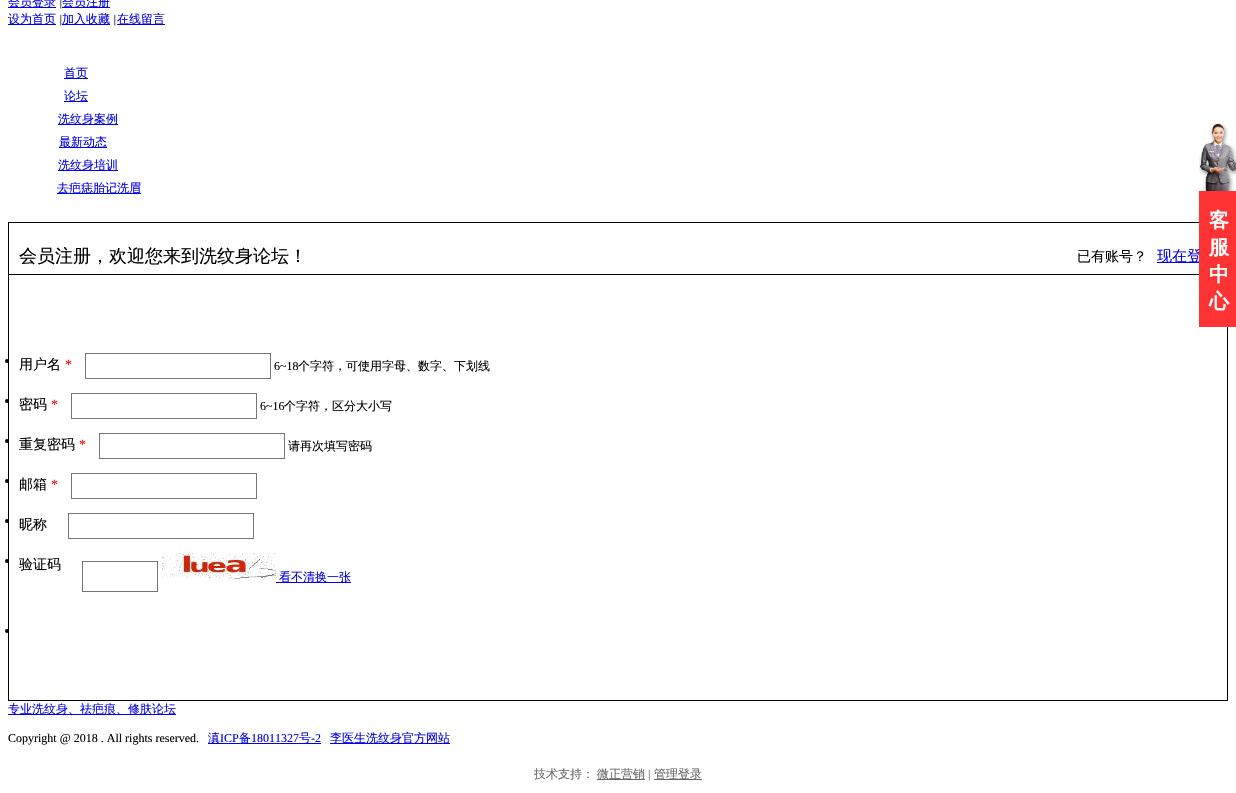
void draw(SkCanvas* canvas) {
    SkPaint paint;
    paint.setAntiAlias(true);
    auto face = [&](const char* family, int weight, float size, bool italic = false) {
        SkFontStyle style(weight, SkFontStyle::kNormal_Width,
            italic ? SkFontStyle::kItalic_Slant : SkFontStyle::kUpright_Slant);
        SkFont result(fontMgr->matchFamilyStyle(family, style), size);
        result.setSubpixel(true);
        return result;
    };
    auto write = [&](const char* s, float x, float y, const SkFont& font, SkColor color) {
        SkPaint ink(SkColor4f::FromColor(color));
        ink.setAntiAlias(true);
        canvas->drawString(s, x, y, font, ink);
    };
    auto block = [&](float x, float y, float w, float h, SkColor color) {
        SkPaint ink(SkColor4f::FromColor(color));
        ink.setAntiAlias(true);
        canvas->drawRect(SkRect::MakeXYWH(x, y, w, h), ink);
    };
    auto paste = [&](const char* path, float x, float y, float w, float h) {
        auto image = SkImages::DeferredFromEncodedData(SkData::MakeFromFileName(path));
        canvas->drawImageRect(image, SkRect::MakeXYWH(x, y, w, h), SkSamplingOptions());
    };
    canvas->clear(SK_ColorWHITE);
    block(8, 7, 48, 1, SkColorSetRGB(0, 0, 238));
    auto kFont1 = face("WenQuanYi Zen Hei", 500, 12);
    write("会员登录", 8, 6, kFont1, SkColorSetRGB(0, 0, 238));
    auto kFont2 = face("Liberation Serif", 400, 12, true);
    write("|", 59, 6, kFont2, SK_ColorBLACK);
    block(62, 7, 48, 1, SkColorSetRGB(0, 0, 238));
    write("会员注册", 62, 6, kFont1, SkColorSetRGB(0, 0, 238));
    block(8, 24, 48, 1, SkColorSetRGB(0, 0, 238));
    write("设为首页", 8, 23, kFont1, SkColorSetRGB(0, 0, 238));
    write("|", 59, 23, kFont2, SK_ColorBLACK);
    block(62, 24, 48, 1, SkColorSetRGB(0, 0, 238));
    write("加入收藏", 62, 23, kFont1, SkColorSetRGB(0, 0, 238));
    write("|", 113, 23, kFont2, SK_ColorBLACK);
    block(117, 24, 48, 1, SkColorSetRGB(0, 0, 238));
    write("在线留言", 117, 23, kFont1, SkColorSetRGB(0, 0, 238));
    block(64, 78, 24, 1, SkColorSetRGB(0, 0, 238));
    write("首页", 64, 77, kFont1, SkColorSetRGB(0, 0, 238));
    block(64, 101, 24, 1, SkColorSetRGB(0, 0, 238));
    write("论坛", 64, 100, kFont1, SkColorSetRGB(0, 0, 238));
    block(58, 124, 60, 1, SkColorSetRGB(0, 0, 238));
    write("洗纹身案例", 58, 123, kFont1, SkColorSetRGB(0, 0, 238));
    block(59, 147, 48, 1, SkColorSetRGB(0, 0, 238));
    write("最新动态", 59, 146, kFont1, SkColorSetRGB(0, 0, 238));
    block(58, 170, 60, 1, SkColorSetRGB(0, 0, 238));
    write("洗纹身培训", 58, 169, kFont1, SkColorSetRGB(0, 0, 238));
    block(57, 193, 84, 1, SkColorSetRGB(0, 0, 238));
    write("去疤痣胎记洗眉", 57, 192, kFont1, SkColorSetRGB(0, 0, 238));
    paint.setStyle(SkPaint::kStroke_Style);
    paint.setStrokeWidth(1);
    paint.setColor(SK_ColorBLACK);
    canvas->drawRect(SkRect::MakeXYWH(8.5f, 222.5f, 1219, 478), paint);
    block(9, 274, 1190, 1, SK_ColorBLACK);
    auto kFont3 = face("WenQuanYi Zen Hei", 500, 18);
    write("会员注册，欢迎您来到洗纹身论坛！", 19, 262, kFont3, SK_ColorBLACK);
    auto kFont4 = face("WenQuanYi Zen Hei", 500, 14);
    write("已有账号？", 1077, 261, kFont4, SK_ColorBLACK);
    block(1157, 262, 42, 1, SkColorSetRGB(0, 0, 238));
    auto kFont5 = face("WenQuanYi Zen Hei", 500, 15);
    write("现在登", 1157, 261, kFont5, SkColorSetRGB(0, 0, 238));
    paint.setStyle(SkPaint::kFill_Style);
    canvas->drawCircle(7, 361, 2, paint);
    write("用户名", 19, 369, kFont4, SK_ColorBLACK);
    auto kFont6 = face("Liberation Serif", 400, 14);
    write("*", 65, 369, kFont6, SkColorSetRGB(255, 0, 0));
    paint.setStyle(SkPaint::kStroke_Style);
    paint.setColor(SkColorSetRGB(118, 118, 118));
    canvas->drawRect(SkRect::MakeXYWH(85.5f, 353.5f, 185, 25), paint);
    auto kFont7 = face("Liberation Serif", 400, 12);
    write("6~18", 274, 370, kFont7, SK_ColorBLACK);
    write("个字符，可使用字母、数字、下划线", 298, 370, kFont1, SK_ColorBLACK);
    paint.setStyle(SkPaint::kFill_Style);
    paint.setColor(SK_ColorBLACK);
    canvas->drawCircle(7, 401, 2, paint);
    write("密码", 19, 409, kFont4, SK_ColorBLACK);
    write("*", 51, 409, kFont6, SkColorSetRGB(255, 0, 0));
    paint.setStyle(SkPaint::kStroke_Style);
    paint.setColor(SkColorSetRGB(118, 118, 118));
    canvas->drawRect(SkRect::MakeXYWH(71.5f, 393.5f, 185, 25), paint);
    write("6~16", 260, 410, kFont7, SK_ColorBLACK);
    write("个字符，区分大小写", 284, 410, kFont1, SK_ColorBLACK);
    paint.setStyle(SkPaint::kFill_Style);
    paint.setColor(SK_ColorBLACK);
    canvas->drawCircle(7, 441, 2, paint);
    write("重复密码", 19, 449, kFont4, SK_ColorBLACK);
    write("*", 79, 449, kFont6, SkColorSetRGB(255, 0, 0));
    paint.setStyle(SkPaint::kStroke_Style);
    paint.setColor(SkColorSetRGB(118, 118, 118));
    canvas->drawRect(SkRect::MakeXYWH(99.5f, 433.5f, 185, 25), paint);
    write("请再次填写密码", 288, 450, kFont1, SK_ColorBLACK);
    paint.setStyle(SkPaint::kFill_Style);
    paint.setColor(SK_ColorBLACK);
    canvas->drawCircle(7, 481, 2, paint);
    write("邮箱", 19, 489, kFont4, SK_ColorBLACK);
    write("*", 51, 489, kFont6, SkColorSetRGB(255, 0, 0));
    paint.setStyle(SkPaint::kStroke_Style);
    paint.setColor(SkColorSetRGB(118, 118, 118));
    canvas->drawRect(SkRect::MakeXYWH(71.5f, 473.5f, 185, 25), paint);
    paint.setStyle(SkPaint::kFill_Style);
    paint.setColor(SK_ColorBLACK);
    canvas->drawCircle(7, 521, 2, paint);
    write("昵称", 19, 529, kFont4, SK_ColorBLACK);
    paint.setStyle(SkPaint::kStroke_Style);
    paint.setColor(SkColorSetRGB(118, 118, 118));
    canvas->drawRect(SkRect::MakeXYWH(68.5f, 513.5f, 185, 25), paint);
    paint.setStyle(SkPaint::kFill_Style);
    paint.setColor(SK_ColorBLACK);
    canvas->drawCircle(7, 561, 2, paint);
    write("验证码", 19, 569, kFont4, SK_ColorBLACK);
    paint.setStyle(SkPaint::kStroke_Style);
    paint.setColor(SkColorSetRGB(118, 118, 118));
    canvas->drawRect(SkRect::MakeXYWH(82.5f, 561.5f, 75, 30), paint);
    paste("pic1.png", 161, 553, 115, 28);
    block(276, 582, 75, 1, SkColorSetRGB(0, 0, 238));
    write("看不清换一张", 279, 581, kFont1, SkColorSetRGB(0, 0, 238));
    paint.setStyle(SkPaint::kFill_Style);
    paint.setColor(SK_ColorBLACK);
    canvas->drawCircle(7, 631, 2, paint);
    paste("pic2.png", 1199, 123, 37, 68);
    block(1199, 191, 37, 136, SkColorSetRGB(255, 51, 51));
    auto kFont8 = face("WenQuanYi Zen Hei", 700, 20);
    write("客", 1209, 227, kFont8, SK_ColorWHITE);
    write("服", 1209, 254, kFont8, SK_ColorWHITE);
    write("中", 1209, 281, kFont8, SK_ColorWHITE);
    write("心", 1209, 308, kFont8, SK_ColorWHITE);
    block(8, 714, 168, 1, SkColorSetRGB(0, 0, 238));
    write("专业洗纹身、祛疤痕、修肤论坛", 8, 713, kFont1, SkColorSetRGB(0, 0, 238));
    write("Copyright @ 2018 . All rights reserved.", 8, 742, kFont7, SK_ColorBLACK);
    block(208, 743, 113, 1, SkColorSetRGB(0, 0, 238));
    write("滇", 208, 742, kFont1, SkColorSetRGB(0, 0, 238));
    write("ICP", 220, 742, kFont7, SkColorSetRGB(0, 0, 238));
    write("备", 239, 742, kFont1, SkColorSetRGB(0, 0, 238));
    write("18011327", 251, 742, kFont7, SkColorSetRGB(0, 0, 238));
    write("号", 299, 742, kFont1, SkColorSetRGB(0, 0, 238));
    write("-2", 311, 742, kFont7, SkColorSetRGB(0, 0, 238));
    block(330, 743, 120, 1, SkColorSetRGB(0, 0, 238));
    write("李医生洗纹身官方网站", 330, 742, kFont1, SkColorSetRGB(0, 0, 238));
    write("技术支持：", 534, 778, kFont1, SkColorSetRGB(102, 102, 102));
    block(597, 779, 48, 1, SkColorSetRGB(102, 102, 102));
    write("微正营销", 597, 778, kFont1, SkColorSetRGB(102, 102, 102));
    write("|", 648, 778, kFont7, SkColorSetRGB(102, 102, 102));
    block(654, 779, 48, 1, SkColorSetRGB(102, 102, 102));
    write("管理登录", 654, 778, kFont1, SkColorSetRGB(102, 102, 102));
}
